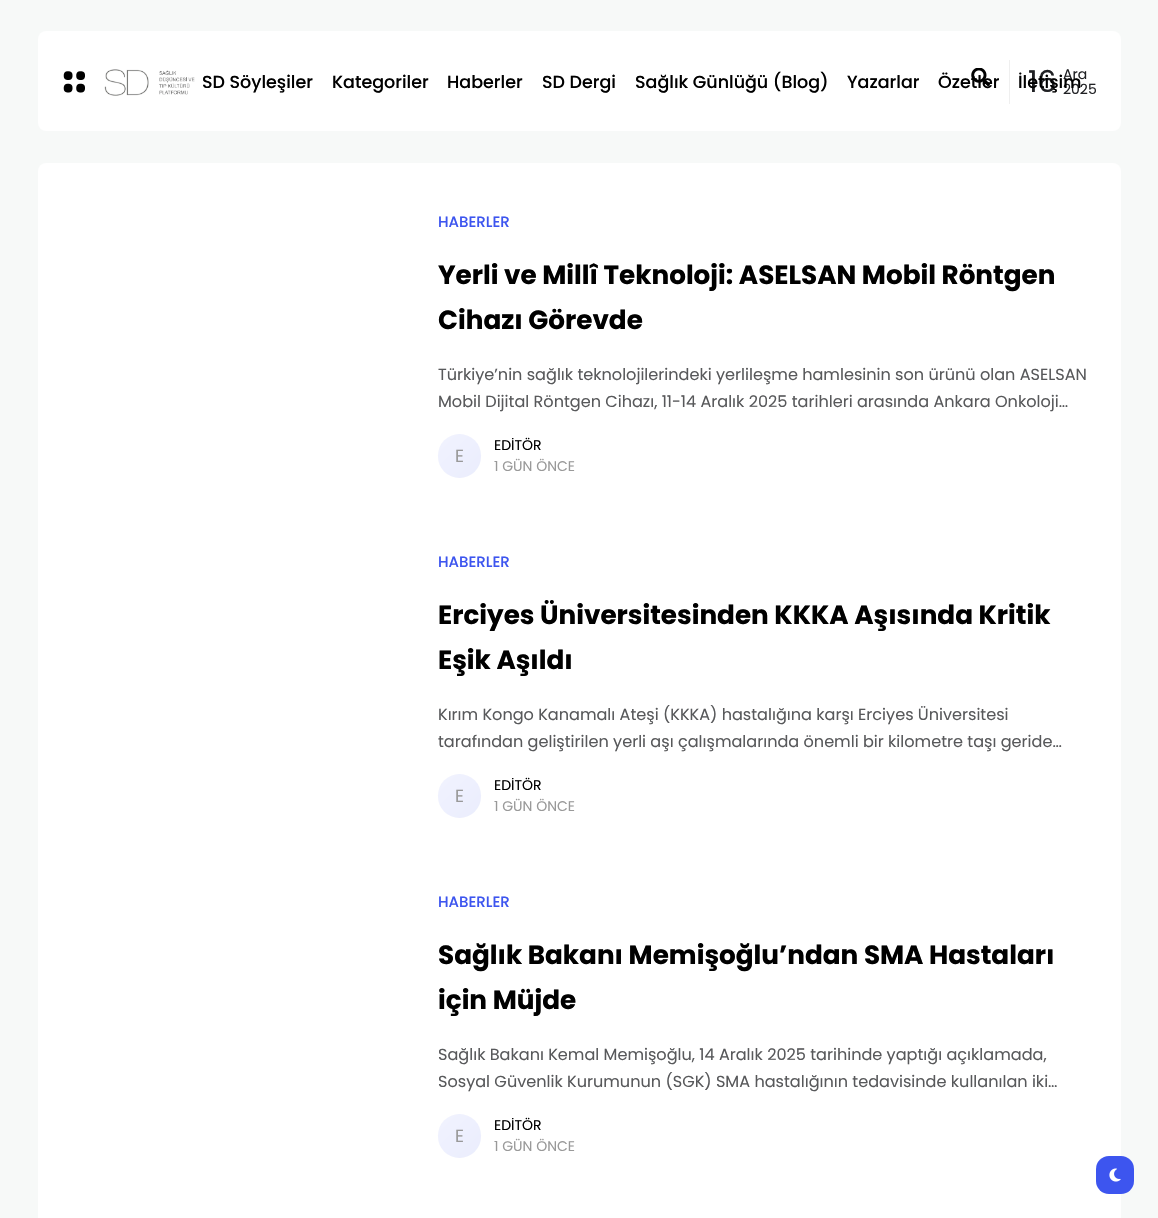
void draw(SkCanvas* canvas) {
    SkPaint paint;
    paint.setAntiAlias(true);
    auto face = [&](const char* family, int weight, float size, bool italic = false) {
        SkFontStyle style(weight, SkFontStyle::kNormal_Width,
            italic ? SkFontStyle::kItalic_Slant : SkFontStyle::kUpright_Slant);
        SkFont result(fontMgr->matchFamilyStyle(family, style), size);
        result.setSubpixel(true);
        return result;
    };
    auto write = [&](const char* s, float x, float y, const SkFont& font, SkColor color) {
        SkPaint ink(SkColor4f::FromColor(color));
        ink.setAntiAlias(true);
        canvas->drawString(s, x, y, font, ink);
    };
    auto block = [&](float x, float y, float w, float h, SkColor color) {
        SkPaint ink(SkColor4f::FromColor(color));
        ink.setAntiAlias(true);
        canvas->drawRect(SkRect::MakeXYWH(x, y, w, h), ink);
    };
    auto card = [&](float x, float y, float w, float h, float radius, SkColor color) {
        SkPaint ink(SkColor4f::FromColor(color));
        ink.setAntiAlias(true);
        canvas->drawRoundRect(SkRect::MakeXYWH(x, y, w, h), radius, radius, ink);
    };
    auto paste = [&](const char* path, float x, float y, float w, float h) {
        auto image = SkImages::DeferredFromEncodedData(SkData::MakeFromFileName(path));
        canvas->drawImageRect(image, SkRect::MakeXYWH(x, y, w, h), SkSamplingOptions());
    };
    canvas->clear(SkColorSetRGB(247, 249, 248));
    card(38, 31, 1083, 100, 8, SK_ColorWHITE);
    paste("pic1.png", 971, 68, 19, 18);
    block(1009, 60, 1, 44, SkColorSetRGB(239, 239, 239));
    auto kFont1 = face("Poppins", 400, 30);
    write("16", 1028, 92, kFont1, SkColorSetRGB(32, 33, 36));
    auto kFont2 = face("Poppins", 400, 14);
    write("Ara", 1063, 79, kFont2, SkColorSetRGB(32, 33, 36));
    write("2025", 1063, 94, kFont2, SkColorSetRGB(32, 33, 36));
    paste("pic2.png", 63, 71, 22, 22);
    paste("pic3.png", 104, 69, 91, 27);
    auto kFont3 = face("Poppins", 500, 17.5f);
    write("SD Söyleşiler", 202, 88, kFont3, SK_ColorBLACK);
    write("Kategoriler", 332, 88, kFont3, SK_ColorBLACK);
    write("Haberler", 447, 88, kFont3, SK_ColorBLACK);
    write("SD Dergi", 542, 88, kFont3, SK_ColorBLACK);
    write("Sağlık Günlüğü (Blog)", 635, 88, kFont3, SK_ColorBLACK);
    write("Yazarlar", 847, 88, kFont3, SK_ColorBLACK);
    write("Özetler", 938, 88, kFont3, SK_ColorBLACK);
    write("İletişim", 1018, 88, kFont3, SK_ColorBLACK);
    card(38, 163, 1083, 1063, 8, SK_ColorWHITE);
    auto kFont4 = face("Poppins", 500, 15);
    write("HABERLER", 438, 227, kFont4, SkColorSetRGB(61, 85, 239));
    auto kFont5 = face("Poppins", 700, 26.25f);
    write("Yerli ve Millî Teknoloji: ASELSAN Mobil Röntgen", 438, 284, kFont5, SK_ColorBLACK);
    write("Cihazı Görevde", 438, 329, kFont5, SK_ColorBLACK);
    auto kFont6 = face("Poppins", 400, 16.1f);
    write("Türkiye’nin sağlık teknolojilerindeki yerlileşme hamlesinin son ürünü olan ASELSAN", 438, 380, kFont6, SkColorSetRGB(88, 89, 91));
    write("Mobil Dijital Röntgen Cihazı, 11-14 Aralık 2025 tarihleri arasında Ankara Onkoloji…", 438, 407, kFont6, SkColorSetRGB(88, 89, 91));
    {
        const SkColor colors[] = {SkColorSetRGB(61, 85, 239), SK_ColorWHITE};
        const float stops[] = {0, 1};
        const SkPoint ends[] = {{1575, 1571}, {350, 346}};
        paint.setShader(SkGradientShader::MakeLinear(ends, colors, stops, 2, SkTileMode::kClamp));
        paint.setAlpha(255);
    }
    canvas->drawRoundRect(SkRect::MakeXYWH(438, 434, 43, 44), 21.5f, 21.5f, paint);
    auto kFont7 = face("Poppins", 400, 17.5f);
    write("E", 455, 462, kFont7, SkColorSetRGB(153, 153, 153));
    write("EDİTÖR", 494, 450, kFont2, SK_ColorBLACK);
    write("1 GÜN ÖNCE", 494, 471, kFont2, SkColorSetRGB(153, 153, 153));
    write("HABERLER", 438, 567, kFont4, SkColorSetRGB(61, 85, 239));
    write("Erciyes Üniversitesinden KKKA Aşısında Kritik", 438, 624, kFont5, SK_ColorBLACK);
    write("Eşik Aşıldı", 438, 669, kFont5, SK_ColorBLACK);
    write("Kırım Kongo Kanamalı Ateşi (KKKA) hastalığına karşı Erciyes Üniversitesi", 438, 720, kFont6, SkColorSetRGB(88, 89, 91));
    write("tarafından geliştirilen yerli aşı çalışmalarında önemli bir kilometre taşı geride…", 438, 747, kFont6, SkColorSetRGB(88, 89, 91));
    {
        const SkColor colors[] = {SkColorSetRGB(61, 85, 239), SK_ColorWHITE};
        const float stops[] = {0, 1};
        const SkPoint ends[] = {{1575, 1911}, {350, 686}};
        paint.setShader(SkGradientShader::MakeLinear(ends, colors, stops, 2, SkTileMode::kClamp));
        paint.setAlpha(255);
    }
    canvas->drawRoundRect(SkRect::MakeXYWH(438, 774, 43, 44), 21.5f, 21.5f, paint);
    write("E", 455, 802, kFont7, SkColorSetRGB(153, 153, 153));
    write("EDİTÖR", 494, 790, kFont2, SK_ColorBLACK);
    write("1 GÜN ÖNCE", 494, 811, kFont2, SkColorSetRGB(153, 153, 153));
    write("HABERLER", 438, 907, kFont4, SkColorSetRGB(61, 85, 239));
    write("Sağlık Bakanı Memişoğlu’ndan SMA Hastaları", 438, 964, kFont5, SK_ColorBLACK);
    write("için Müjde", 438, 1009, kFont5, SK_ColorBLACK);
    write("Sağlık Bakanı Kemal Memişoğlu, 14 Aralık 2025 tarihinde yaptığı açıklamada,", 438, 1060, kFont6, SkColorSetRGB(88, 89, 91));
    write("Sosyal Güvenlik Kurumunun (SGK) SMA hastalığının tedavisinde kullanılan iki…", 438, 1087, kFont6, SkColorSetRGB(88, 89, 91));
    {
        const SkColor colors[] = {SkColorSetRGB(61, 85, 239), SK_ColorWHITE};
        const float stops[] = {0, 1};
        const SkPoint ends[] = {{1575, 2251}, {350, 1026}};
        paint.setShader(SkGradientShader::MakeLinear(ends, colors, stops, 2, SkTileMode::kClamp));
        paint.setAlpha(255);
    }
    canvas->drawRoundRect(SkRect::MakeXYWH(438, 1114, 43, 44), 21.5f, 21.5f, paint);
    write("E", 455, 1142, kFont7, SkColorSetRGB(153, 153, 153));
    write("EDİTÖR", 494, 1130, kFont2, SK_ColorBLACK);
    write("1 GÜN ÖNCE", 494, 1151, kFont2, SkColorSetRGB(153, 153, 153));
    card(1096, 1156, 38, 38, 13, SkColorSetRGB(61, 85, 239));
    paste("pic4.png", 1109, 1168, 12, 14);
}
